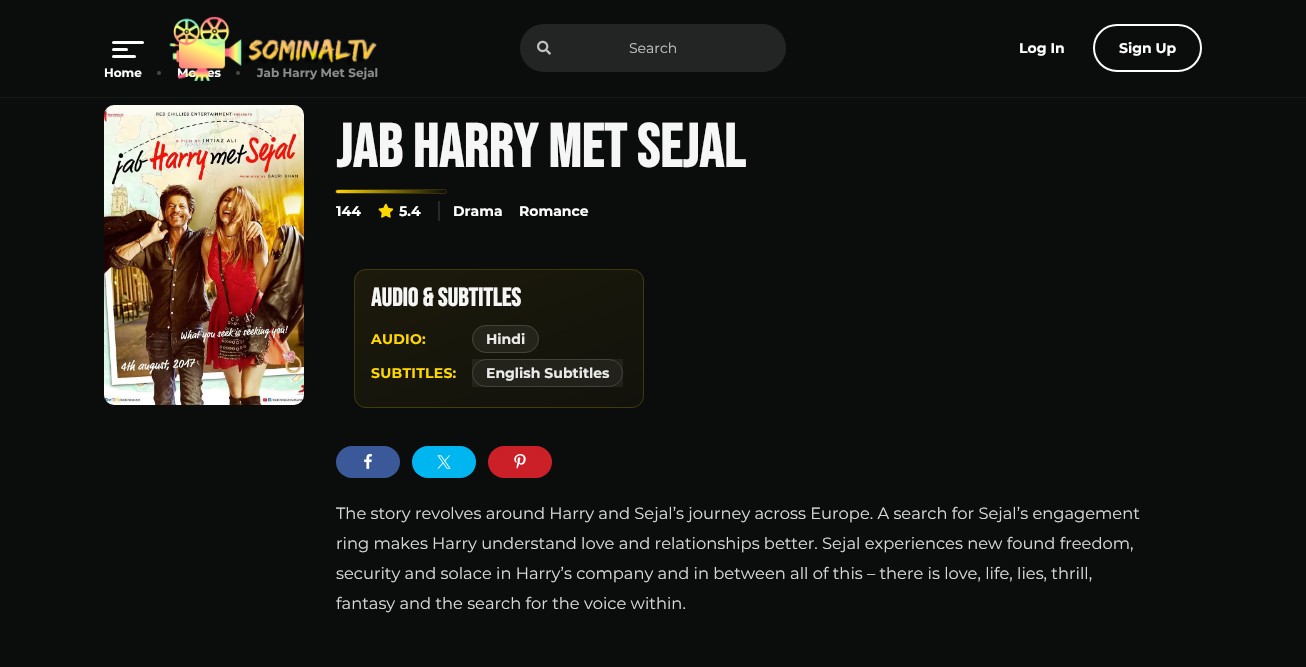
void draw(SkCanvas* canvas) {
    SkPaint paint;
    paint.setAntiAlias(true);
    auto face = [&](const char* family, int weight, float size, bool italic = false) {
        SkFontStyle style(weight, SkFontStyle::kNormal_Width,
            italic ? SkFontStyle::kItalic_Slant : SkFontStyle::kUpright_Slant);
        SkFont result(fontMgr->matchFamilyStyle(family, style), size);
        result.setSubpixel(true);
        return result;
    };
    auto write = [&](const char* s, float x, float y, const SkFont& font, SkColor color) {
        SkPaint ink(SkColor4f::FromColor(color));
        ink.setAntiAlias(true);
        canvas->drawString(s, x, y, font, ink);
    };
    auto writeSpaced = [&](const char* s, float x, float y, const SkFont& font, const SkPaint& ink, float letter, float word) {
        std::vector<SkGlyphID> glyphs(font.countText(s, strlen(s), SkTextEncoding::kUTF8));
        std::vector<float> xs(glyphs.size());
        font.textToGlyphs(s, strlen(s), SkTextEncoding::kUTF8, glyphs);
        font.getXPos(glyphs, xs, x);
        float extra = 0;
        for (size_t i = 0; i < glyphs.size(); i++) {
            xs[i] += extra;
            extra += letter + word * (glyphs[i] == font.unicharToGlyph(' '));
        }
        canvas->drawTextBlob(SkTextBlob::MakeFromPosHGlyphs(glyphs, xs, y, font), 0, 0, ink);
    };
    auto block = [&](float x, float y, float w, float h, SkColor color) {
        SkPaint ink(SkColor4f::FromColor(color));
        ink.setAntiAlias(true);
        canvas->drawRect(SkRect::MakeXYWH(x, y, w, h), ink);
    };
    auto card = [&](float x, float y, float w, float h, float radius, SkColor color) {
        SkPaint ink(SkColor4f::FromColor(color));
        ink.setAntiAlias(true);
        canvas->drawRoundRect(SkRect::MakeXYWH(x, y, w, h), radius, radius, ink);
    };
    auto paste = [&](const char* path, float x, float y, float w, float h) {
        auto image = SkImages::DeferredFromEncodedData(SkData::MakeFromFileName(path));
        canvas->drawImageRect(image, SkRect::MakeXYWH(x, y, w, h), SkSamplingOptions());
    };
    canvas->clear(SkColorSetRGB(11, 12, 12));
    block(0, 97, 1306, 1, SkColorSetRGB(23, 24, 24));
    card(112, 41, 32, 3, 1.5f, SK_ColorWHITE);
    card(112, 48, 16, 3, 1.5f, SK_ColorWHITE);
    card(112, 55, 24, 3, 1.5f, SK_ColorWHITE);
    auto kFont1 = face("Montserrat", 100, 12);
    write("Mo", 177, 77, kFont1, SK_ColorWHITE);
    write("es", 207, 77, kFont1, SK_ColorWHITE);
    paint.setColor(SkColorSetRGB(71, 72, 72));
    canvas->drawCircle(238, 73, 2, paint);
    write("Jab Harry Met Sejal", 257, 77, kFont1, SkColorSetRGB(137, 139, 140));
    paste("pic1.png", 169, 16, 208, 65);
    card(520, 24, 266, 48, 24, SkColorSetRGB(35, 36, 36));
    paste("pic2.png", 537, 40, 14, 15);
    auto kFont2 = face("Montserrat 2", 100, 14);
    write("Search", 629, 53, kFont2, SkColorSetRGB(191, 193, 195));
    auto kFont3 = face("Montserrat", 100, 14);
    write("Log In", 1019, 53, kFont3, SK_ColorWHITE);
    paint.setStyle(SkPaint::kStroke_Style);
    paint.setStrokeWidth(2);
    paint.setColor(SK_ColorWHITE);
    canvas->drawRoundRect(SkRect::MakeXYWH(1094, 25, 107, 46), 23, 23, paint);
    write("Sign Up", 1119, 53, kFont3, SK_ColorWHITE);
    write("Home", 104, 77, kFont1, SK_ColorWHITE);
    paint.setStyle(SkPaint::kFill_Style);
    paint.setColor(SkColorSetRGB(71, 72, 72));
    canvas->drawCircle(159, 73, 2, paint);
    paste("pic3.png", 104, 105, 200, 300);
    auto kFont4 = face("Bebas Neue", 700, 60.75f);
    paint.setColor(SkColorSetRGB(246, 246, 246));
    writeSpaced("Jab Harry Met Sejal", 336, 167, kFont4, paint, 0.5f, 0);
    paint.setStyle(SkPaint::kStroke_Style);
    paint.setStrokeWidth(1);
    paint.setColor(SkColorSetRGB(55, 49, 10));
    canvas->drawRoundRect(SkRect::MakeXYWH(335.5f, 189.5f, 111, 4), 2, 2, paint);
    paint.setStyle(SkPaint::kFill_Style);
    {
        const SkColor colors[] = {SkColorSetRGB(255, 215, 0), SkColorSetARGB(0, 255, 215, 0)};
        const float stops[] = {0, 1};
        const SkPoint ends[] = {{336, 192}, {446, 192}};
        paint.setShader(SkGradientShader::MakeLinear(ends, colors, stops, 2, SkTileMode::kClamp));
        paint.setAlpha(255);
    }
    canvas->drawRoundRect(SkRect::MakeXYWH(336, 190, 110, 3), 1.5f, 1.5f, paint);
    write("144", 336, 216, kFont3, SK_ColorWHITE);
    paste("pic4.png", 378, 203, 16, 15);
    write("5.4", 399, 216, kFont3, SK_ColorWHITE);
    block(438, 201, 2, 20, SkColorSetRGB(40, 41, 41));
    write("Drama", 453, 216, kFont3, SK_ColorWHITE);
    write("Romance", 519, 216, kFont3, SK_ColorWHITE);
    canvas->save();
    canvas->clipPath(SkPathBuilder().moveTo(366, 269).lineTo(632, 269).cubicTo(638.5f, 269, 644, 274.5f, 644, 281).lineTo(644, 396).cubicTo(644, 402.5f, 638.5f, 408, 632, 408).lineTo(366, 408).cubicTo(359.5f, 408, 354, 402.5f, 354, 396).lineTo(354, 281).cubicTo(354, 274.5f, 359.5f, 269, 366, 269).close().detach(), true);
    {
        const SkColor colors[] = {SkColorSetRGB(28, 26, 11), SkColorSetRGB(18, 18, 12)};
        const float stops[] = {0, 1};
        const SkPoint ends[] = {{460, 95}, {538, 308}};
        paint.setShader(SkGradientShader::MakeLinear(ends, colors, stops, 2, SkTileMode::kClamp));
        paint.setAlpha(255);
    }
    canvas->drawRect(SkRect::MakeXYWH(355, 269, 288, 1), paint);
    {
        const SkColor colors[] = {SkColorSetRGB(28, 26, 11), SkColorSetRGB(18, 18, 12)};
        const float stops[] = {0, 1};
        const SkPoint ends[] = {{172, 232}, {250, 445}};
        paint.setShader(SkGradientShader::MakeLinear(ends, colors, stops, 2, SkTileMode::kClamp));
        paint.setAlpha(255);
    }
    canvas->drawRect(SkRect::MakeXYWH(354, 270, 1, 137), paint);
    {
        const SkColor colors[] = {SkColorSetRGB(28, 26, 11), SkColorSetRGB(18, 18, 12)};
        const float stops[] = {0, 1};
        const SkPoint ends[] = {{460, 232}, {538, 445}};
        paint.setShader(SkGradientShader::MakeLinear(ends, colors, stops, 2, SkTileMode::kClamp));
        paint.setAlpha(255);
    }
    canvas->drawRect(SkRect::MakeXYWH(355, 270, 288, 137), paint);
    {
        const SkColor colors[] = {SkColorSetRGB(28, 26, 11), SkColorSetRGB(18, 18, 12)};
        const float stops[] = {0, 1};
        const SkPoint ends[] = {{748, 232}, {826, 445}};
        paint.setShader(SkGradientShader::MakeLinear(ends, colors, stops, 2, SkTileMode::kClamp));
        paint.setAlpha(255);
    }
    canvas->drawRect(SkRect::MakeXYWH(643, 270, 1, 137), paint);
    {
        const SkColor colors[] = {SkColorSetRGB(28, 26, 11), SkColorSetRGB(18, 18, 12)};
        const float stops[] = {0, 1};
        const SkPoint ends[] = {{460, 369}, {538, 582}};
        paint.setShader(SkGradientShader::MakeLinear(ends, colors, stops, 2, SkTileMode::kClamp));
        paint.setAlpha(255);
    }
    canvas->drawRect(SkRect::MakeXYWH(355, 407, 288, 1), paint);
    canvas->restore();
    paint.setStyle(SkPaint::kStroke_Style);
    paint.setShader(nullptr);
    paint.setColor(SkColorSetARGB(46, 255, 215, 0));
    canvas->drawRoundRect(SkRect::MakeXYWH(354.5f, 269.5f, 289, 138), 11.5f, 11.5f, paint);
    auto kFont5 = face("Bebas Neue", 700, 25.5f);
    paint.setStyle(SkPaint::kFill_Style);
    paint.setColor(SkColorSetRGB(246, 246, 246));
    writeSpaced("Audio & Subtitles", 371, 306, kFont5, paint, 0.25f, 0);
    paint.setColor(SkColorSetRGB(255, 215, 0));
    writeSpaced("AUDIO:", 371, 344, kFont3, paint, 0.25f, 0);
    card(472, 325, 67, 28, 14, SkColorSetRGB(37, 36, 26));
    paint.setStyle(SkPaint::kStroke_Style);
    paint.setColor(SkColorSetARGB(36, 255, 255, 255));
    canvas->drawRoundRect(SkRect::MakeXYWH(472.5f, 325.5f, 66, 27), 13.5f, 13.5f, paint);
    write("Hindi", 486, 344, kFont3, SkColorSetRGB(234, 234, 234));
    paint.setStyle(SkPaint::kFill_Style);
    paint.setColor(SkColorSetRGB(255, 215, 0));
    writeSpaced("SUBTITLES:", 371, 378, kFont3, paint, 0.25f, 0);
    block(472, 359, 151, 28, SkColorSetARGB(15, 255, 255, 255));
    paint.setStyle(SkPaint::kStroke_Style);
    paint.setColor(SkColorSetARGB(36, 255, 255, 255));
    canvas->drawRoundRect(SkRect::MakeXYWH(472.5f, 359.5f, 150, 27), 13.5f, 13.5f, paint);
    write("English Subtitles", 486, 378, kFont3, SkColorSetRGB(234, 234, 234));
    card(336, 446, 64, 32, 16, SkColorSetRGB(59, 89, 152));
    paste("pic5.png", 364, 454, 8, 15);
    card(412, 446, 64, 32, 16, SkColorSetRGB(0, 182, 241));
    paste("pic6.png", 437, 455, 14, 14);
    card(488, 446, 64, 32, 16, SkColorSetRGB(203, 32, 39));
    paste("pic7.png", 514, 454, 12, 15);
    auto kFont6 = face("Montserrat 2", 100, 16.3f);
    write("The story revolves around Harry and Sejal’s journey across Europe. A search for Sejal’s engagement", 336, 519, kFont6, SkColorSetRGB(217, 217, 217));
    write("ring makes Harry understand love and relationships better. Sejal experiences new found freedom,", 336, 549, kFont6, SkColorSetRGB(217, 217, 217));
    write("security and solace in Harry’s company and in between all of this – there is love, life, lies, thrill,", 336, 579, kFont6, SkColorSetRGB(217, 217, 217));
    write("fantasy and the search for the voice within.", 336, 609, kFont6, SkColorSetRGB(217, 217, 217));
}
